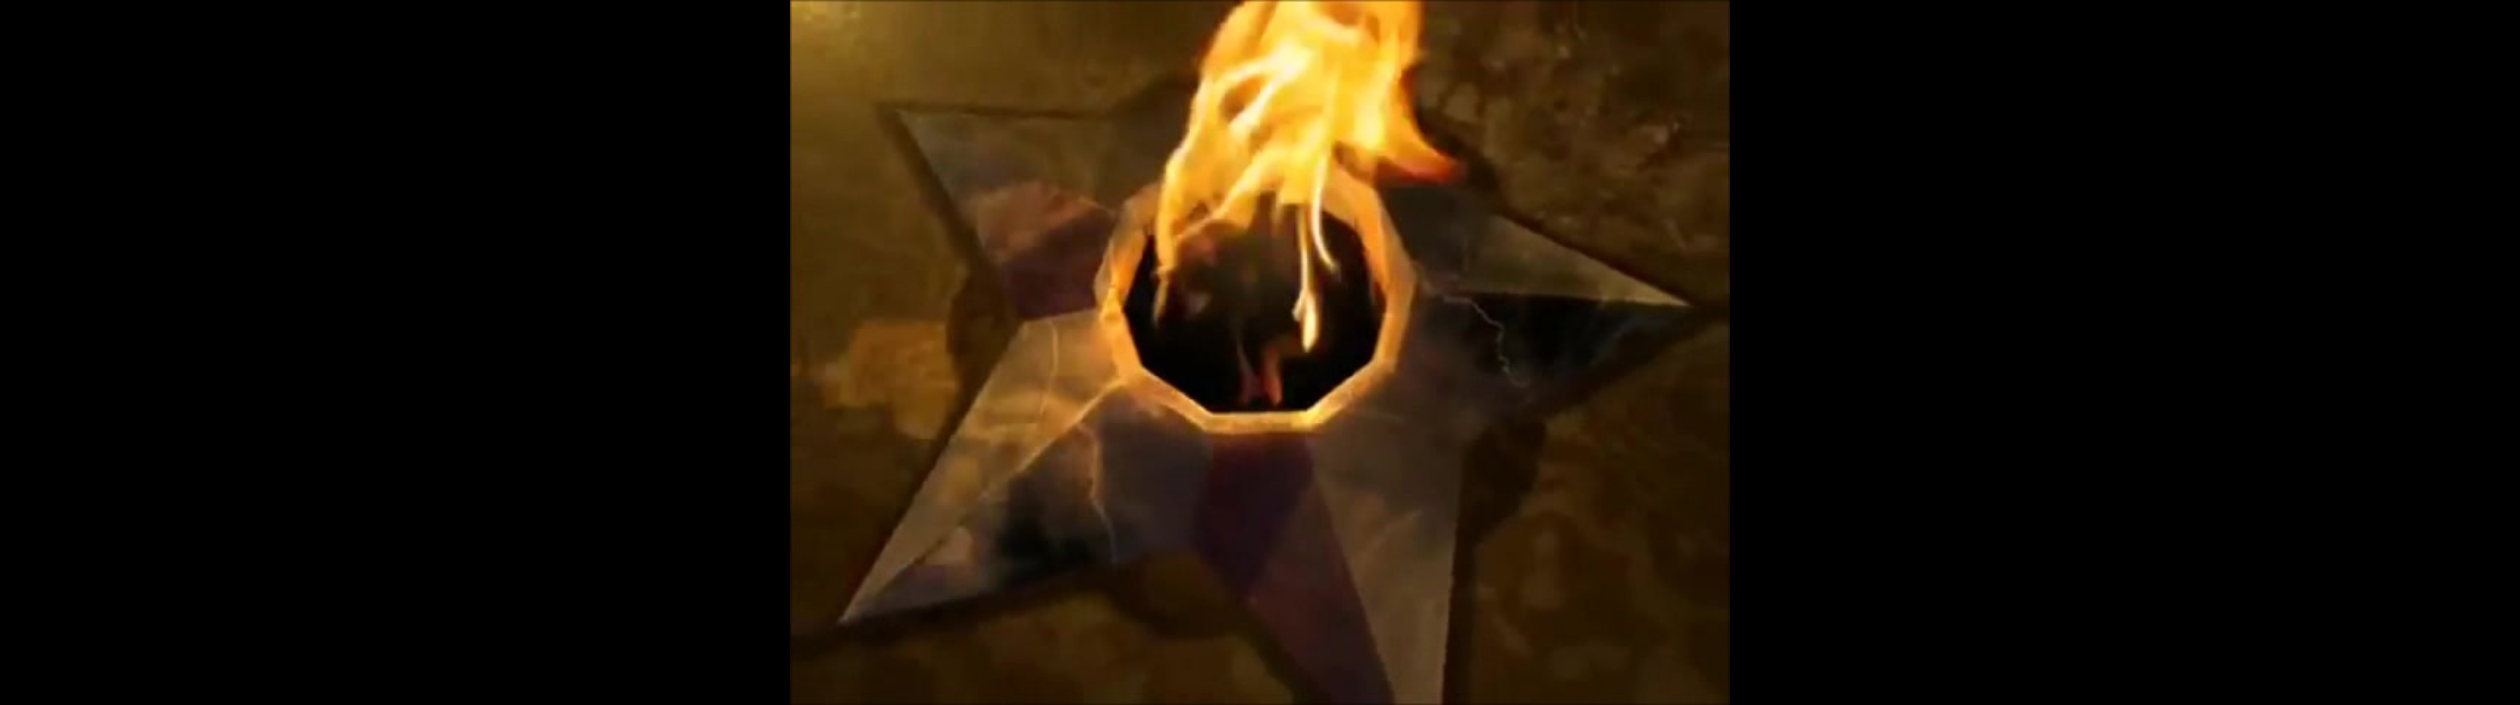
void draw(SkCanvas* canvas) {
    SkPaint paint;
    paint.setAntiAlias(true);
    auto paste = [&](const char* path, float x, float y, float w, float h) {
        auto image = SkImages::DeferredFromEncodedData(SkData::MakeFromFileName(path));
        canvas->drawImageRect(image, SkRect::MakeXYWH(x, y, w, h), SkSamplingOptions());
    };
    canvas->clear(SK_ColorBLACK);
    paste("pic1.png", 790, 0, 940, 705);
}
